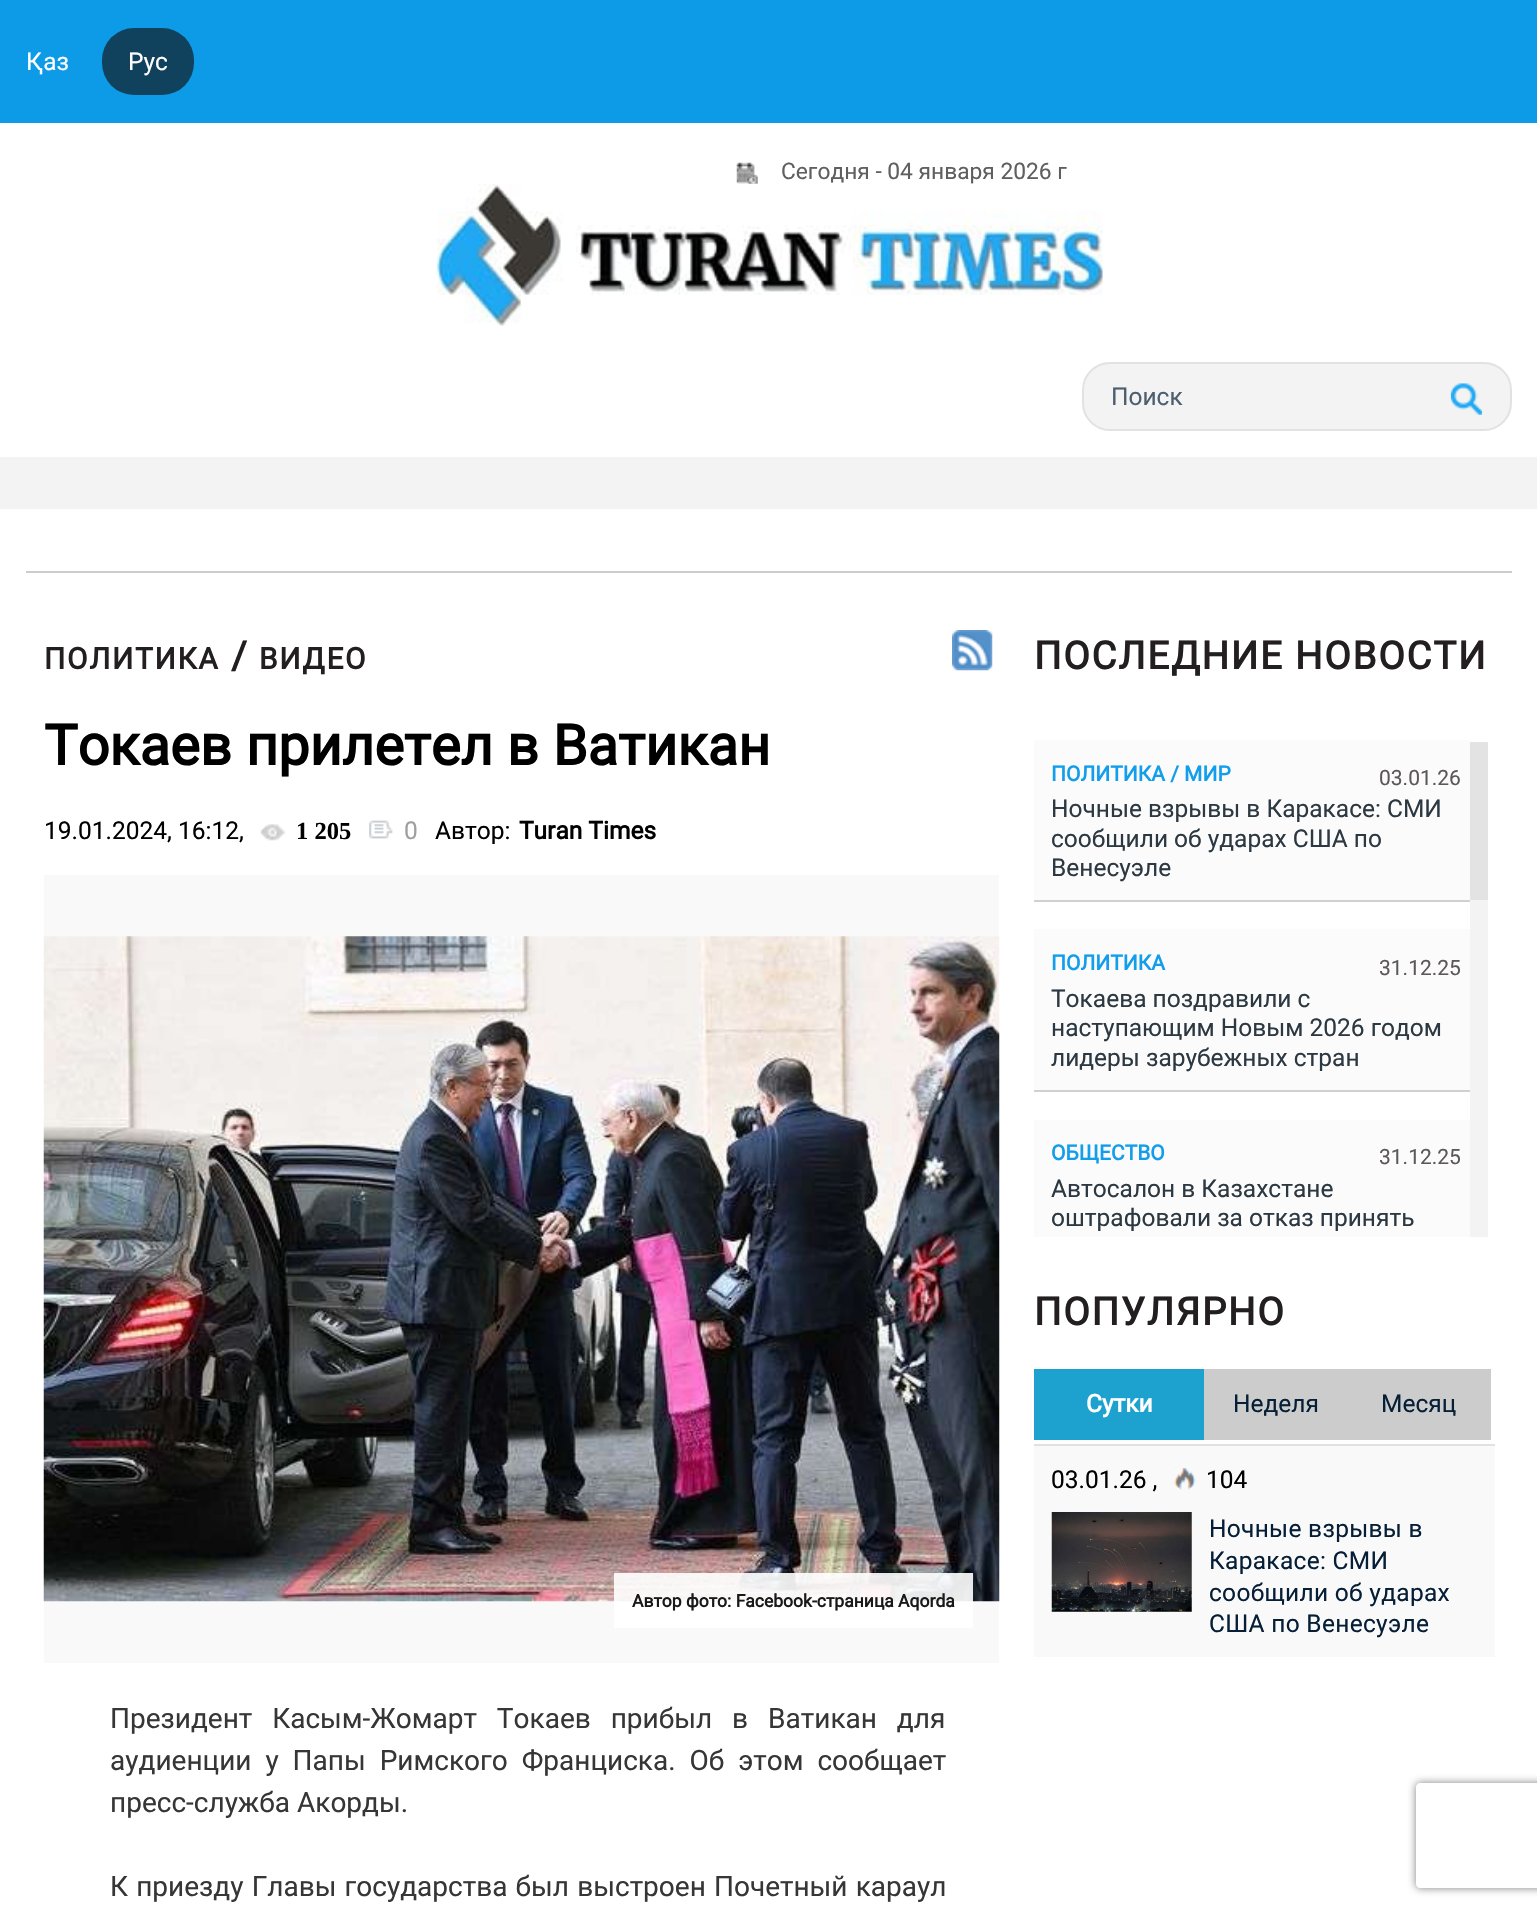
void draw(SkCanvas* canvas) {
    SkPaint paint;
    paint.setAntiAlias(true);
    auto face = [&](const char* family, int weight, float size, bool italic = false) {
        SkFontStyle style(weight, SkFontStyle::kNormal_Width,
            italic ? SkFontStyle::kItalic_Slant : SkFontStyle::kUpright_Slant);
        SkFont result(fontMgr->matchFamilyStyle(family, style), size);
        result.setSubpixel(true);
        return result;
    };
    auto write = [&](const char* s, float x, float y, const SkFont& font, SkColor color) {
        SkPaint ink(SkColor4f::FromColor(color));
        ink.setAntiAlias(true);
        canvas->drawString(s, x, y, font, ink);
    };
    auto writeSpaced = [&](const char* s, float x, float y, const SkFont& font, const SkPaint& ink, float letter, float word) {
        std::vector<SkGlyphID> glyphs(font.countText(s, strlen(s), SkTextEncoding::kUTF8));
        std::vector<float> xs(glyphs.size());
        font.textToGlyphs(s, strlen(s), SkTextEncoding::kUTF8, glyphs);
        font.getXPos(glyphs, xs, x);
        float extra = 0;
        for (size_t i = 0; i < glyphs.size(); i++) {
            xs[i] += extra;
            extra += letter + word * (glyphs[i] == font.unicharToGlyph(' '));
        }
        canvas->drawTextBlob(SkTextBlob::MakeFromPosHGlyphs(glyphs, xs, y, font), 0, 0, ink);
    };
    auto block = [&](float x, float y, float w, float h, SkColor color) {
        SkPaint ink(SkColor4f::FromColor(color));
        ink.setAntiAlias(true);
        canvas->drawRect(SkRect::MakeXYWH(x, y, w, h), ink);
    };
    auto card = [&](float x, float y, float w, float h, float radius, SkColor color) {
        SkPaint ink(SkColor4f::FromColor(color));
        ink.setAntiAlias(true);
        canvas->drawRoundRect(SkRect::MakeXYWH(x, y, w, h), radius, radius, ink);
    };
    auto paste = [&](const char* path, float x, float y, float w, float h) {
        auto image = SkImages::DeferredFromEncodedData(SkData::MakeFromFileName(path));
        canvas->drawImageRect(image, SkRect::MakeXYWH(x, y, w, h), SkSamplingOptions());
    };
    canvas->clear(SkColorSetRGB(243, 243, 243));
    block(0, 0, 1537, 123, SkColorSetRGB(13, 154, 231));
    auto kFont1 = face("Roboto", 400, 24.5f);
    write("Қаз", 26, 70, kFont1, SK_ColorWHITE);
    card(102, 28, 92, 67, 32, SkColorSetRGB(16, 65, 93));
    write("Рус", 128, 70, kFont1, SK_ColorWHITE);
    block(0, 123, 1537, 334, SK_ColorWHITE);
    paste("pic1.png", 736, 162, 22, 22);
    auto kFont2 = face("Roboto", 400, 22.75f);
    write("Сегодня - 04 января 2026 г", 781, 179, kFont2, SkColorSetRGB(95, 95, 95));
    paste("pic2.png", 437, 183, 666, 143);
    paint.setColor(SkColorSetRGB(243, 243, 243));
    canvas->drawRoundRect(SkRect::MakeXYWH(1083, 363, 428, 67), 27, 27, paint);
    paint.setStyle(SkPaint::kStroke_Style);
    paint.setStrokeWidth(2);
    paint.setColor(SkColorSetRGB(224, 227, 226));
    canvas->drawRoundRect(SkRect::MakeXYWH(1083, 363, 428, 67), 27, 27, paint);
    write("Поиск", 1111, 405, kFont1, SkColorSetRGB(77, 95, 111));
    paste("pic3.png", 1450, 383, 33, 32);
    block(0, 509, 1537, 1403, SK_ColorWHITE);
    block(26, 571, 1486, 2, SkColorSetRGB(204, 204, 204));
    auto kFont3 = face("Roboto", 700, 29.75f);
    paint.setStyle(SkPaint::kFill_Style);
    paint.setColor(SkColorSetRGB(35, 31, 32));
    writeSpaced("ПОЛИТИКА", 44, 669, kFont3, paint, 1.75f, 0);
    auto kFont4 = face("Roboto", 700, 38.5f);
    writeSpaced("/", 231, 669, kFont4, paint, 1.75f, 0);
    writeSpaced("ВИДЕО", 259, 669, kFont3, paint, 1.75f, 0);
    auto kFont5 = face("Roboto", 700, 56);
    write("Токаев прилетел в Ватикан", 44, 765, kFont5, SK_ColorBLACK);
    write("19.01.2024, 16:12,", 44, 839, kFont1, SK_ColorBLACK);
    paste("pic4.png", 260, 824, 26, 17);
    auto kFont6 = face("Liberation Serif", 700, 24.5f);
    write("1 205", 296, 839, kFont6, SK_ColorBLACK);
    paste("pic5.png", 369, 820, 24, 19);
    write("0", 404, 839, kFont1, SkColorSetRGB(159, 159, 159));
    write("Автор:", 435, 839, kFont1, SK_ColorBLACK);
    auto kFont7 = face("Roboto", 700, 24.5f);
    write("Turan Times", 519, 839, kFont7, SK_ColorBLACK);
    block(44, 875, 955, 788, SkColorSetRGB(249, 249, 249));
    paste("pic6.png", 43, 936, 957, 666);
    block(614, 1573, 359, 55, SkColorSetARGB(230, 255, 255, 255));
    auto kFont8 = face("Roboto", 700, 17.5f);
    write("Автор фото: Facebook-страница Aqorda", 632, 1607, kFont8, SkColorSetRGB(25, 25, 25));
    auto kFont9 = face("Roboto", 400, 28);
    paint.setColor(SkColorSetRGB(54, 54, 54));
    writeSpaced("Президент Касым-Жомарт Токаев прибыл в Ватикан для", 110, 1728, kFont9, paint, 0, 13);
    writeSpaced("аудиенции у Папы Римского Франциска. Об этом сообщает", 110, 1770, kFont9, paint, 0, 7);
    write("пресс-служба Акорды.", 110, 1812, kFont9, SkColorSetRGB(54, 54, 54));
    writeSpaced("К приезду Главы государства был выстроен Почетный караул", 110, 1896, kFont9, paint, 0, 1.25f);
    paste("pic7.png", 952, 630, 41, 41);
    paint.setColor(SkColorSetRGB(35, 31, 32));
    writeSpaced("ПОСЛЕДНИЕ НОВОСТИ", 1034, 669, kFont4, paint, 1.75f, 0);
    block(1034, 740, 436, 160, SkColorSetRGB(251, 251, 251));
    block(1034, 900, 436, 2, SkColorSetRGB(208, 208, 208));
    auto kFont10 = face("Roboto", 700, 21);
    write("ПОЛИТИКА / МИР", 1051, 781, kFont10, SkColorSetRGB(18, 158, 235));
    auto kFont11 = face("Roboto", 400, 21);
    write("03.01.26", 1379, 785, kFont11, SkColorSetRGB(92, 88, 89));
    write("Ночные взрывы в Каракасе: СМИ", 1051, 817, kFont1, SkColorSetRGB(45, 57, 66));
    write("сообщили об ударах США по", 1051, 847, kFont1, SkColorSetRGB(45, 57, 66));
    write("Венесуэле", 1051, 876, kFont1, SkColorSetRGB(45, 57, 66));
    block(1034, 929, 436, 161, SkColorSetRGB(251, 251, 251));
    block(1034, 1090, 436, 2, SkColorSetRGB(208, 208, 208));
    write("ПОЛИТИКА", 1051, 970, kFont10, SkColorSetRGB(18, 158, 235));
    write("31.12.25", 1379, 975, kFont11, SkColorSetRGB(92, 88, 89));
    write("Токаева поздравили с", 1051, 1007, kFont1, SkColorSetRGB(45, 57, 66));
    write("наступающим Новым 2026 годом", 1051, 1036, kFont1, SkColorSetRGB(45, 57, 66));
    write("лидеры зарубежных стран", 1051, 1066, kFont1, SkColorSetRGB(45, 57, 66));
    block(1034, 1120, 436, 117, SkColorSetRGB(251, 251, 251));
    write("ОБЩЕСТВО", 1051, 1160, kFont10, SkColorSetRGB(18, 158, 235));
    write("31.12.25", 1379, 1164, kFont11, SkColorSetRGB(92, 88, 89));
    write("Автосалон в Казахстане", 1051, 1197, kFont1, SkColorSetRGB(45, 57, 66));
    write("оштрафовали за отказ принять", 1051, 1226, kFont1, SkColorSetRGB(45, 57, 66));
    block(1470, 742, 18, 158, SkColorSetRGB(227, 227, 227));
    block(1470, 900, 18, 337, SkColorSetRGB(243, 243, 243));
    writeSpaced("ПОПУЛЯРНО", 1034, 1325, kFont4, paint, 1.75f, 0);
    block(1034, 1444, 461, 2, SkColorSetRGB(225, 225, 225));
    block(1034, 1369, 170, 71, SkColorSetRGB(29, 162, 207));
    write("Сутки", 1086, 1412, kFont7, SK_ColorWHITE);
    block(1204, 1369, 287, 71, SkColorSetRGB(204, 204, 204));
    write("Неделя", 1233, 1412, kFont1, SkColorSetRGB(6, 31, 55));
    write("Месяц", 1381, 1412, kFont1, SkColorSetRGB(6, 31, 55));
    block(1034, 1446, 461, 211, SkColorSetRGB(249, 249, 249));
    write("03.01.26 ,", 1051, 1488, kFont1, SK_ColorBLACK);
    paste("pic8.png", 1174, 1468, 22, 22);
    write("104", 1206, 1488, kFont1, SK_ColorBLACK);
    paste("pic9.png", 1051, 1512, 141, 100);
    paint.setColor(SkColorSetRGB(6, 31, 55));
    writeSpaced("Ночные взрывы в", 1209, 1537, kFont1, paint, 0.3f, 0);
    writeSpaced("Каракасе: СМИ", 1209, 1569, kFont1, paint, 0.3f, 0);
    writeSpaced("сообщили об ударах", 1209, 1601, kFont1, paint, 0.3f, 0);
    writeSpaced("США по Венесуэле", 1209, 1632, kFont1, paint, 0.3f, 0);
    canvas->save();
    canvas->clipPath(SkPathBuilder(SkPathFillType::kEvenOdd).moveTo(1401, 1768).lineTo(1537, 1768).lineTo(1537, 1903).lineTo(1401, 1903).close().moveTo(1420, 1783).lineTo(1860, 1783).cubicTo(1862, 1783, 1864, 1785, 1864, 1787).lineTo(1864, 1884).cubicTo(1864, 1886, 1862, 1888, 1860, 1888).lineTo(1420, 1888).cubicTo(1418, 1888, 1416, 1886, 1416, 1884).lineTo(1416, 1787).cubicTo(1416, 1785, 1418, 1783, 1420, 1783).close().detach(), true);
    paint.setColor(SkColorSetRGB(128, 128, 128));
    paint.setMaskFilter(SkMaskFilter::MakeBlur(kNormal_SkBlurStyle, 4.5f));
    canvas->drawRoundRect(SkRect::MakeXYWH(1416, 1783, 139, 105), 4, 4, paint);
    paint.setMaskFilter(nullptr);
    canvas->restore();
}
